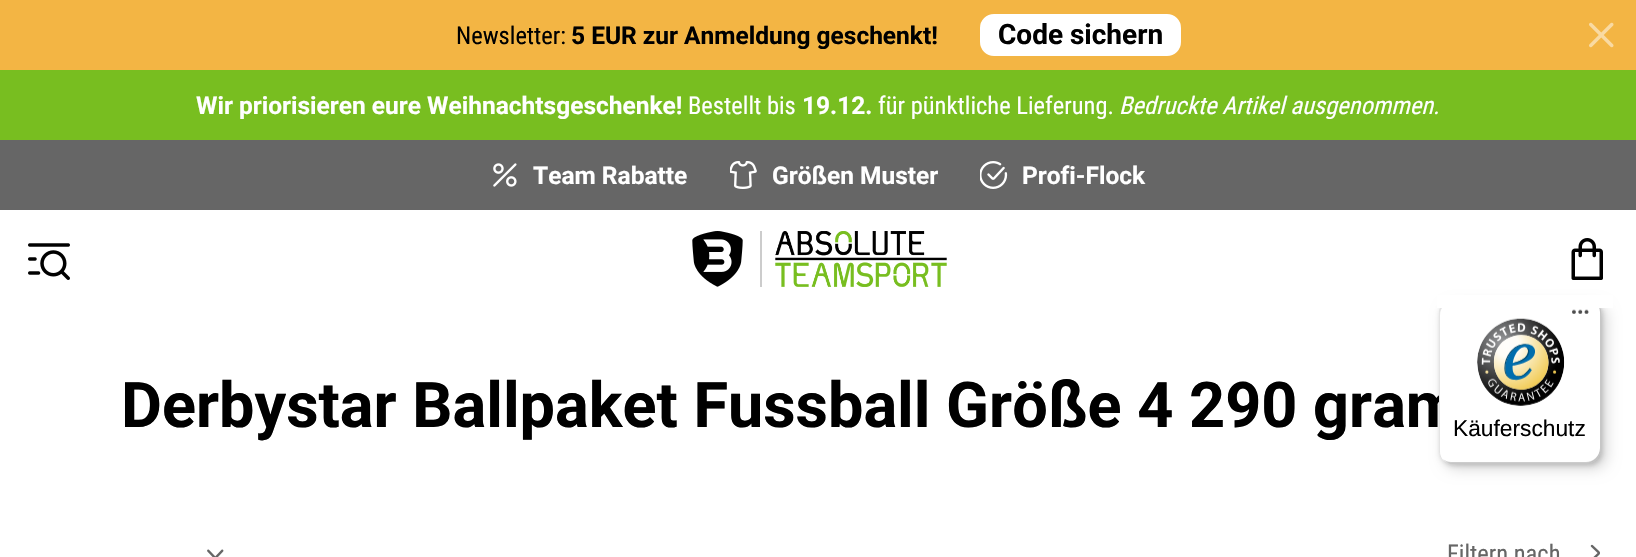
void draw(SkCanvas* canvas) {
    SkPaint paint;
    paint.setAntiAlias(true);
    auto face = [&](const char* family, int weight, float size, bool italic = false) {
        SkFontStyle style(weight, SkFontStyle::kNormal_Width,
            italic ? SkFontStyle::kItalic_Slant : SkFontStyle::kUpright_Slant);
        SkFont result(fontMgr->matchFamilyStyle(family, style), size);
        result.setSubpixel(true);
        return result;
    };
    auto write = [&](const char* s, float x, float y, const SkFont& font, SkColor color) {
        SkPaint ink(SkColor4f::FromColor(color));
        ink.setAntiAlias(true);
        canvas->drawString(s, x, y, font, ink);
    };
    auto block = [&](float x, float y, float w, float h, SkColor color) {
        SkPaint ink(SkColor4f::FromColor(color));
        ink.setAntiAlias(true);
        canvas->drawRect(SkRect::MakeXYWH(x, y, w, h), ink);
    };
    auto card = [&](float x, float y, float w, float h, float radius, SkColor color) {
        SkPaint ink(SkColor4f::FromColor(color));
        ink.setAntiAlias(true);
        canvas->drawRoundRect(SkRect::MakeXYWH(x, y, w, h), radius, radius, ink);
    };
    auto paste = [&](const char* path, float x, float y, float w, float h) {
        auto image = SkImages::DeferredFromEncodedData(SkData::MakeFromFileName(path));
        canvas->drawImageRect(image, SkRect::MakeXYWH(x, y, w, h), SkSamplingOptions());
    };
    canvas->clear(SK_ColorWHITE);
    paint.setColor(SkColorSetARGB(38, 0, 0, 0));
    paint.setMaskFilter(SkMaskFilter::MakeBlur(kNormal_SkBlurStyle, 7));
    canvas->drawRoundRect(SkRect::MakeXYWH(1444, 305, 163, 164), 14, 14, paint);
    paint.setMaskFilter(nullptr);
    paint.setMaskFilter(SkMaskFilter::MakeBlur(kNormal_SkBlurStyle, 2));
    canvas->drawRoundRect(SkRect::MakeXYWH(1440, 301, 163, 165), 14, 14, paint);
    paint.setMaskFilter(nullptr);
    auto kFont1 = face("Roboto", 700, 63);
    write("Derbystar Ballpaket Fussball Größe 4 290 gram", 121, 427, kFont1, SK_ColorBLACK);
    card(1439, 299, 162, 165, 14, SK_ColorWHITE);
    paint.setColor(SkColorSetARGB(26, 0, 0, 0));
    canvas->drawPath(SkPathBuilder().moveTo(1454, 301).lineTo(1589, 301).cubicTo(1592, 301, 1595, 302, 1597, 304).cubicTo(1595, 301, 1591, 299, 1587, 299).lineTo(1453, 299).cubicTo(1445, 299, 1439, 305, 1439, 313).lineTo(1439, 450).cubicTo(1439, 453, 1440, 456, 1442, 459).cubicTo(1441, 457, 1440, 454, 1440, 452).lineTo(1440, 315).cubicTo(1440, 307, 1447, 301, 1454, 301).close().detach(), paint);
    paint.setColor(SkColorSetARGB(51, 0, 0, 0));
    canvas->drawPath(SkPathBuilder().moveTo(1443, 459).cubicTo(1445, 462, 1449, 464, 1453, 464).lineTo(1587, 464).cubicTo(1595, 464, 1601, 458, 1601, 450).lineTo(1601, 313).cubicTo(1601, 308, 1599, 304, 1595, 302).cubicTo(1598, 304, 1600, 308, 1600, 312).lineTo(1600, 448).cubicTo(1600, 456, 1593, 462, 1586, 462).lineTo(1451, 462).cubicTo(1448, 462, 1445, 461, 1443, 459).close().detach(), paint);
    paint.setColor(SkColorSetARGB(51, 50, 50, 50));
    canvas->drawPath(SkPathBuilder().moveTo(1444, 461).cubicTo(1447, 463, 1450, 464, 1453, 464).lineTo(1587, 464).cubicTo(1595, 464, 1601, 458, 1601, 450).lineTo(1601, 313).cubicTo(1601, 309, 1600, 306, 1597, 304).cubicTo(1599, 306, 1600, 309, 1600, 312).lineTo(1600, 449).cubicTo(1600, 456, 1594, 463, 1586, 463).lineTo(1451, 463).cubicTo(1449, 463, 1446, 462, 1444, 461).close().detach(), paint);
    paint.setColor(SkColorSetARGB(77, 255, 255, 255));
    canvas->drawPath(SkPathBuilder().moveTo(1444, 460).cubicTo(1446, 463, 1449, 464, 1453, 464).lineTo(1587, 464).cubicTo(1595, 464, 1601, 458, 1601, 450).lineTo(1601, 313).cubicTo(1601, 308, 1599, 304, 1596, 302).cubicTo(1598, 305, 1600, 308, 1600, 312).lineTo(1600, 449).cubicTo(1600, 457, 1594, 463, 1586, 463).lineTo(1452, 463).cubicTo(1449, 463, 1446, 462, 1444, 460).close().detach(), paint);
    block(1437, 295, 176, 13, SK_ColorWHITE);
    block(0, 0, 1636, 70, SkColorSetRGB(243, 181, 68));
    auto kFont2 = face("Roboto Condensed", 400, 24.5f);
    write("Newsletter:", 456, 44, kFont2, SK_ColorBLACK);
    auto kFont3 = face("Roboto", 700, 24.5f);
    write("5 EUR zur Anmeldung geschenkt!", 571, 44, kFont3, SK_ColorBLACK);
    paint.setColor(SK_ColorWHITE);
    canvas->drawRoundRect(SkRect::MakeXYWH(982, 16, 197, 38), 12, 12, paint);
    paint.setStyle(SkPaint::kStroke_Style);
    paint.setStrokeWidth(4);
    canvas->drawRoundRect(SkRect::MakeXYWH(982, 16, 197, 38), 12, 12, paint);
    auto kFont4 = face("Roboto", 700, 28);
    write("Code sichern", 998, 44, kFont4, SK_ColorBLACK);
    paste("pic1.png", 1589, 22, 25, 26);
    block(0, 70, 1636, 70, SkColorSetRGB(120, 190, 32));
    write("Wir priorisieren eure Weihnachtsgeschenke!", 196, 114, kFont3, SK_ColorWHITE);
    write("Bestellt bis", 688, 114, kFont2, SK_ColorWHITE);
    write("19.12.", 802, 114, kFont3, SK_ColorWHITE);
    write("für pünktliche Lieferung.", 878, 114, kFont2, SK_ColorWHITE);
    auto kFont5 = face("Roboto Condensed", 400, 24.5f, true);
    write("Bedruckte Artikel ausgenommen.", 1119, 114, kFont5, SK_ColorWHITE);
    block(0, 140, 1636, 70, SkColorSetRGB(102, 102, 102));
    paste("pic2.png", 493, 163, 24, 24);
    write("Team Rabatte", 533, 184, kFont3, SK_ColorWHITE);
    paste("pic3.png", 730, 161, 27, 28);
    write("Größen Muster", 772, 184, kFont3, SK_ColorWHITE);
    paste("pic4.png", 980, 161, 28, 28);
    write("Profi-Flock", 1022, 184, kFont3, SK_ColorWHITE);
    paste("pic5.png", 28, 243, 42, 37);
    paste("pic6.png", 692, 231, 51, 56);
    block(760, 231, 2, 56, SkColorSetRGB(204, 204, 204));
    paste("pic7.png", 775, 231, 172, 56);
    paste("pic8.png", 1571, 238, 32, 42);
    paste("pic9.png", 207, 549, 17, 8);
    write("Filtern nach", 1447, 562, kFont2, SkColorSetRGB(102, 102, 102));
    paste("pic10.png", 1590, 544, 10, 13);
    paste("pic11.png", 1572, 309, 17, 5);
    paste("pic12.png", 1477, 318, 88, 88);
    auto kFont6 = face("Liberation Sans", 400, 22.75f);
    write("Käuferschutz", 1453, 436, kFont6, SK_ColorBLACK);
}
